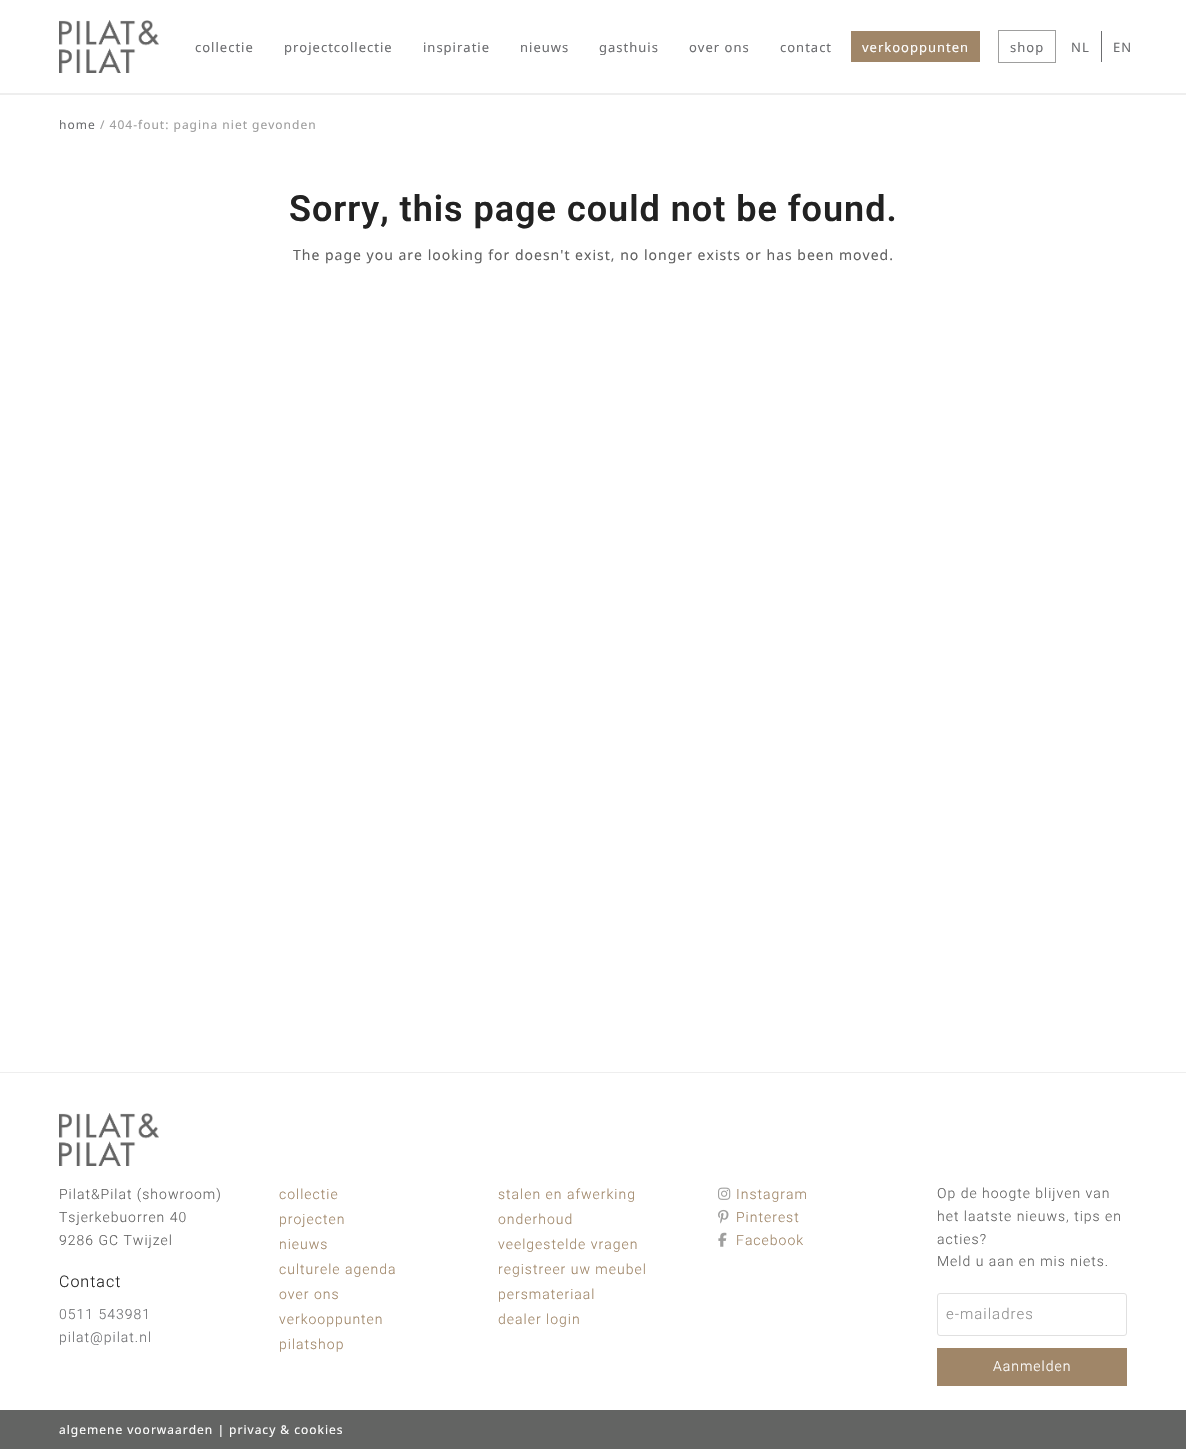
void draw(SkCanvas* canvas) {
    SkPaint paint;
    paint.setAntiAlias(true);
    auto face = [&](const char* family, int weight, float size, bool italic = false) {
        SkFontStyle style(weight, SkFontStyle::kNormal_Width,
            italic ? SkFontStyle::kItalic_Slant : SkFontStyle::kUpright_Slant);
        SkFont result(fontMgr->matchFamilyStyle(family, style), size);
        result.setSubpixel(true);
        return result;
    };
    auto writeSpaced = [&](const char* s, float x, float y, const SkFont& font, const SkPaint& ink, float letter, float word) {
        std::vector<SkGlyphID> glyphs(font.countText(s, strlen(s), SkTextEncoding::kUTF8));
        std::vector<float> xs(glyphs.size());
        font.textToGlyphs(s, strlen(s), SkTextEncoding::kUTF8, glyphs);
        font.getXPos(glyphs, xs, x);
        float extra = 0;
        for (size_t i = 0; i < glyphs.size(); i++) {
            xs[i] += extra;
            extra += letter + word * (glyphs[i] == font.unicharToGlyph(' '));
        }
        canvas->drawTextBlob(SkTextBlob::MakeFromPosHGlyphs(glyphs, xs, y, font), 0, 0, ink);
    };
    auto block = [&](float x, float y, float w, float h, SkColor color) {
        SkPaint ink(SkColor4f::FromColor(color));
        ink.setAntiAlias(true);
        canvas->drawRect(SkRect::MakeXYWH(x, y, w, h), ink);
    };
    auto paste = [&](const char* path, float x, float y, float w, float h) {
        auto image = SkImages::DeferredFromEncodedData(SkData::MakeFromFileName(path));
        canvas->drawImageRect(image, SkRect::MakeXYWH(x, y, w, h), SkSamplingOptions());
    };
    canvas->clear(SK_ColorWHITE);
    paste("pic1.png", 59, 20, 100, 53);
    auto kFont1 = face("Noto Sans", 400, 13);
    paint.setColor(SkColorSetRGB(108, 109, 112));
    writeSpaced("collectie", 195, 52, kFont1, paint, 1, 0);
    writeSpaced("projectcollectie", 284, 52, kFont1, paint, 1, 0);
    writeSpaced("inspiratie", 423, 52, kFont1, paint, 1, 0);
    writeSpaced("nieuws", 520, 52, kFont1, paint, 1, 0);
    writeSpaced("gasthuis", 599, 52, kFont1, paint, 1, 0);
    writeSpaced("over ons", 689, 52, kFont1, paint, 1, 0);
    writeSpaced("contact", 780, 52, kFont1, paint, 1, 0);
    block(851, 31, 129, 31, SkColorSetRGB(160, 134, 104));
    paint.setColor(SK_ColorWHITE);
    writeSpaced("verkooppunten", 862, 52, kFont1, paint, 1, 0);
    paint.setStyle(SkPaint::kStroke_Style);
    paint.setStrokeWidth(1);
    paint.setColor(SkColorSetRGB(159, 159, 158));
    canvas->drawRect(SkRect::MakeXYWH(998.5f, 30.5f, 57, 32), paint);
    paint.setStyle(SkPaint::kFill_Style);
    paint.setColor(SkColorSetRGB(108, 109, 112));
    writeSpaced("shop", 1010, 52, kFont1, paint, 1, 0);
    block(1101, 31, 1, 31, SkColorSetRGB(108, 109, 112));
    writeSpaced("NL", 1071, 52, kFont1, paint, 1, 0);
    writeSpaced("EN", 1113, 52, kFont1, paint, 1, 0);
    block(0, 93, 1186, 2, SkColorSetRGB(238, 238, 238));
    auto kFont2 = face("Noto Sans", 400, 12);
    writeSpaced("home", 59, 129, kFont2, paint, 1, 0);
    paint.setColor(SkColorSetRGB(158, 158, 158));
    writeSpaced("/ 404-fout: pagina niet gevonden", 100, 129, kFont2, paint, 1, 0);
    auto kFont3 = face("Roboto", 600, 36);
    paint.setColor(SkColorSetRGB(34, 34, 34));
    writeSpaced("Sorry, this page could not be found.", 289, 221, kFont3, paint, 1, 0);
    auto kFont4 = face("Noto Sans", 400, 14);
    paint.setColor(SkColorSetRGB(97, 97, 97));
    writeSpaced("The page you are looking for doesn't exist, no longer exists or has been moved.", 293, 260, kFont4, paint, 1, 0);
    block(0, 1072, 1186, 1, SkColorSetRGB(238, 238, 238));
    paste("pic1.png", 59, 1113, 100, 53);
    auto kFont5 = face("Roboto", 300, 14);
    writeSpaced("Pilat&Pilat (showroom)", 59, 1199, kFont5, paint, 1, 0);
    writeSpaced("Tsjerkebuorren 40", 59, 1222, kFont5, paint, 1, 0);
    writeSpaced("9286 GC Twijzel", 59, 1245, kFont5, paint, 1, 0);
    auto kFont6 = face("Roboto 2", 300, 16);
    paint.setColor(SkColorSetRGB(34, 34, 34));
    writeSpaced("Contact", 59, 1287, kFont6, paint, 1, 0);
    paint.setColor(SkColorSetRGB(108, 109, 112));
    writeSpaced("0511 543981", 59, 1319, kFont5, paint, 1, 0);
    writeSpaced("pilat@pilat.nl", 59, 1342, kFont5, paint, 1, 0);
    paint.setColor(SkColorSetRGB(160, 134, 104));
    writeSpaced("collectie", 279, 1199, kFont5, paint, 1, 0);
    writeSpaced("projecten", 279, 1224, kFont5, paint, 1, 0);
    writeSpaced("nieuws", 279, 1249, kFont5, paint, 1, 0);
    writeSpaced("culturele agenda", 279, 1274, kFont5, paint, 1, 0);
    writeSpaced("over ons", 279, 1299, kFont5, paint, 1, 0);
    writeSpaced("verkooppunten", 279, 1324, kFont5, paint, 1, 0);
    writeSpaced("pilatshop", 279, 1349, kFont5, paint, 1, 0);
    writeSpaced("stalen en afwerking", 498, 1199, kFont5, paint, 1, 0);
    writeSpaced("onderhoud", 498, 1224, kFont5, paint, 1, 0);
    writeSpaced("veelgestelde vragen", 498, 1249, kFont5, paint, 1, 0);
    writeSpaced("registreer uw meubel", 498, 1274, kFont5, paint, 1, 0);
    writeSpaced("persmateriaal", 498, 1299, kFont5, paint, 1, 0);
    writeSpaced("dealer login", 498, 1324, kFont5, paint, 1, 0);
    paste("pic2.png", 718, 1187, 13, 13);
    writeSpaced("Instagram", 736, 1199, kFont5, paint, 1, 0);
    paste("pic3.png", 718, 1209, 11, 15);
    writeSpaced("Pinterest", 736, 1222, kFont5, paint, 1, 0);
    paste("pic4.png", 718, 1232, 9, 15);
    writeSpaced("Facebook", 736, 1245, kFont5, paint, 1, 0);
    paint.setColor(SkColorSetRGB(97, 97, 97));
    writeSpaced("Op de hoogte blijven van", 937, 1198, kFont5, paint, 1, 0);
    writeSpaced("het laatste nieuws, tips en", 937, 1221, kFont5, paint, 1, 0);
    writeSpaced("acties?", 937, 1244, kFont5, paint, 1, 0);
    writeSpaced("Meld u aan en mis niets.", 937, 1266, kFont5, paint, 1, 0);
    paint.setStyle(SkPaint::kStroke_Style);
    paint.setColor(SkColorSetRGB(224, 224, 224));
    canvas->drawRoundRect(SkRect::MakeXYWH(937.5f, 1293.5f, 189, 42), 2.5f, 2.5f, paint);
    auto kFont7 = face("Roboto", 300, 15);
    paint.setStyle(SkPaint::kFill_Style);
    paint.setColor(SkColorSetRGB(144, 144, 144));
    writeSpaced("e-mailadres", 946, 1319, kFont7, paint, 1, 0);
    block(937, 1348, 190, 38, SkColorSetRGB(160, 134, 104));
    paint.setColor(SK_ColorWHITE);
    writeSpaced("Aanmelden", 993, 1371, kFont5, paint, 1, 0);
    block(0, 1410, 1186, 39, SkColorSetRGB(99, 100, 99));
    writeSpaced("algemene voorwaarden | privacy & cookies", 59, 1434, kFont2, paint, 1, 0);
}
